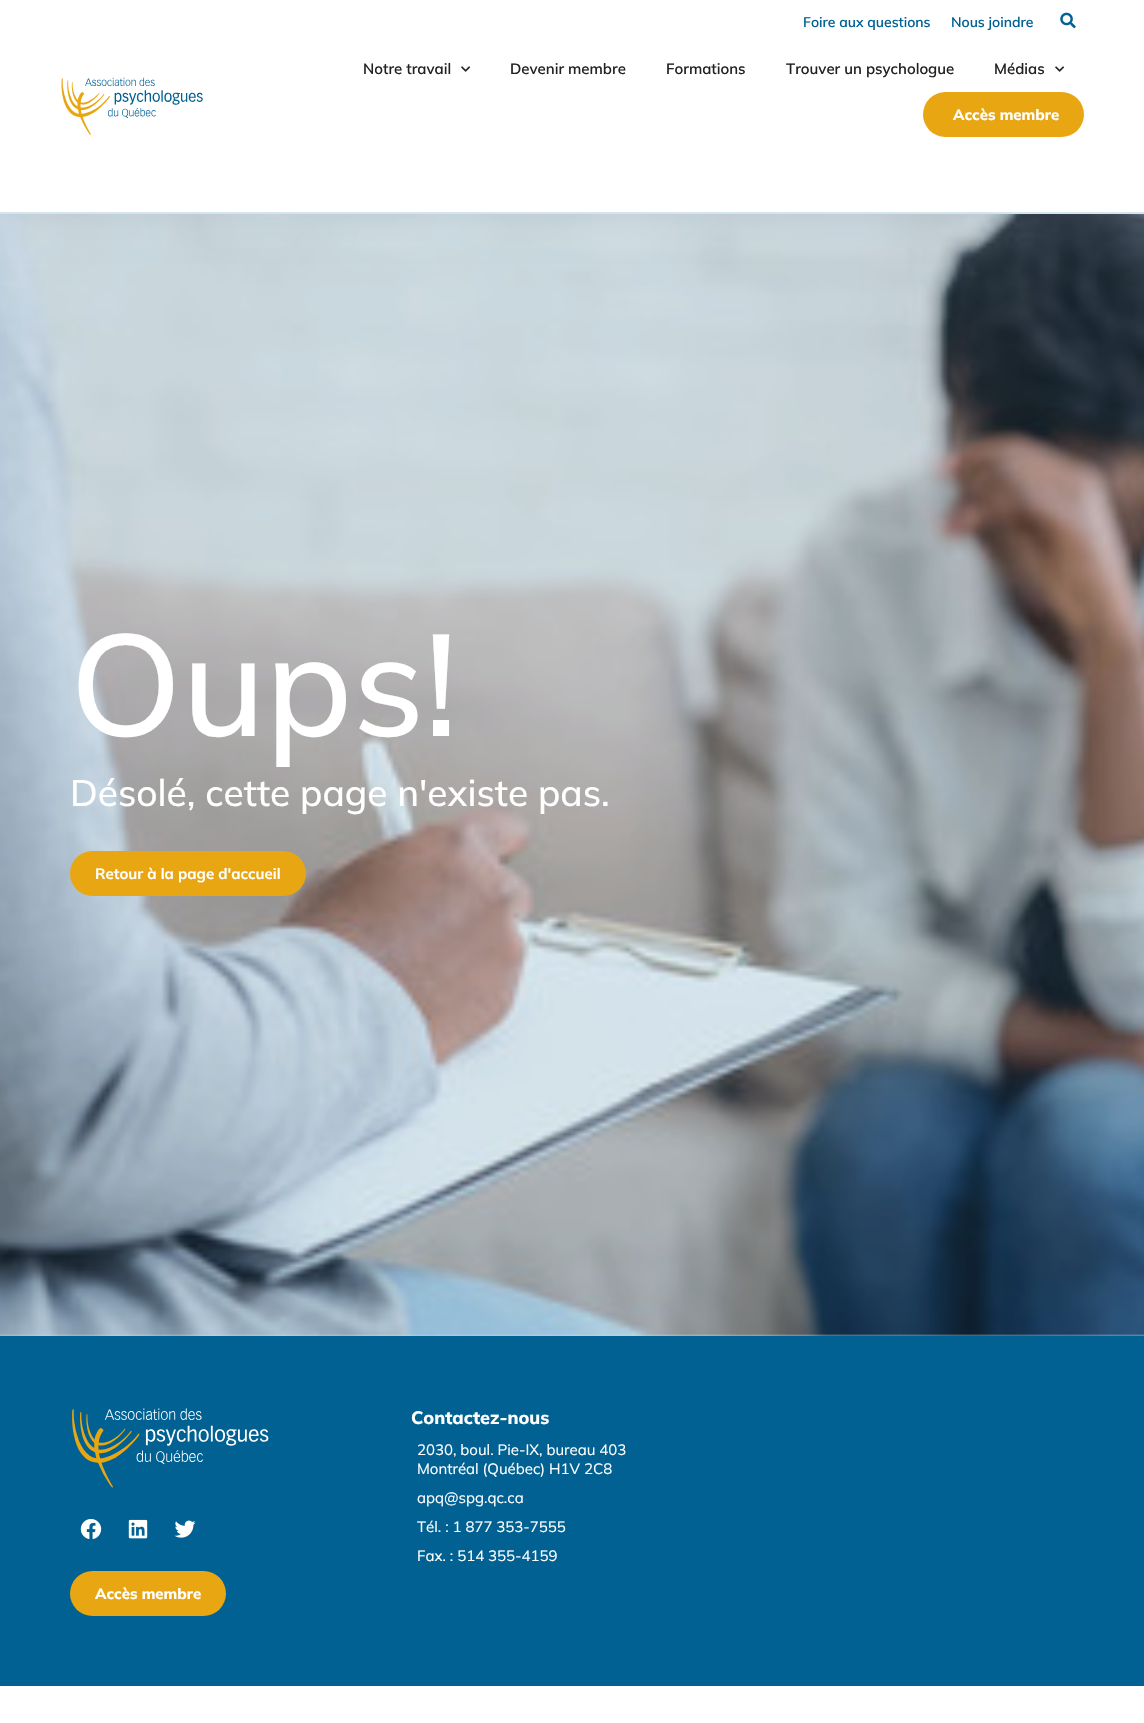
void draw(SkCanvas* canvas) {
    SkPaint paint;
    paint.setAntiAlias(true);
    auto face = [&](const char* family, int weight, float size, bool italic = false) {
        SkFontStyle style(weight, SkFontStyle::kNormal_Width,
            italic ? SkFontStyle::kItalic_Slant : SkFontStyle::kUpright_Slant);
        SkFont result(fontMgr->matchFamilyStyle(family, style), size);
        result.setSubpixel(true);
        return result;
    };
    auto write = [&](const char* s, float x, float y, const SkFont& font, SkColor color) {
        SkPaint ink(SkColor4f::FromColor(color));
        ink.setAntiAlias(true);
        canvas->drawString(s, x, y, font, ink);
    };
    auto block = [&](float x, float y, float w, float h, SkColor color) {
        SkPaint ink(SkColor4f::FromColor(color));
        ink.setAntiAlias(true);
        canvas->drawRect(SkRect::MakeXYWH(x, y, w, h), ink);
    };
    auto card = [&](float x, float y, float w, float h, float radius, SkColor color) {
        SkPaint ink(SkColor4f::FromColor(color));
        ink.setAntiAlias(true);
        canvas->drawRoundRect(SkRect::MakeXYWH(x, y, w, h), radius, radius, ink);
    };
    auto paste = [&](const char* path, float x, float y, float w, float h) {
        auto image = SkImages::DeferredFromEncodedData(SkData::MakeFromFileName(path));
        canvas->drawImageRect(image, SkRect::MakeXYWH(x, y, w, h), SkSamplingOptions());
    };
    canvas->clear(SK_ColorWHITE);
    paste("pic4.png", 0, 214, 1144, 1122);
    paint.setColor(SkColorSetARGB(13, 0, 0, 0));
    paint.setMaskFilter(SkMaskFilter::MakeBlur(kNormal_SkBlurStyle, 15));
    canvas->drawRect(SkRect::MakeXYWH(0, 5, 1144, 214), paint);
    paint.setMaskFilter(nullptr);
    block(0, 0, 1144, 212, SK_ColorWHITE);
    block(0, 212, 1144, 2, SkColorSetRGB(213, 229, 237));
    paste("pic1.png", 61, 77, 142, 58);
    auto kFont1 = face("Mulish", 600, 14);
    write("Foire aux questions", 803, 27, kFont1, SkColorSetRGB(0, 97, 146));
    write("Nous joindre", 951, 27, kFont1, SkColorSetRGB(0, 97, 146));
    paste("pic2.png", 1060, 12, 16, 17);
    auto kFont2 = face("Mulish", 600, 15);
    write("Notre travail", 363, 74, kFont2, SkColorSetRGB(34, 34, 34));
    paste("pic3.png", 461, 66, 9, 6);
    write("Devenir membre", 510, 74, kFont2, SkColorSetRGB(34, 34, 34));
    write("Formations", 666, 74, kFont2, SkColorSetRGB(34, 34, 34));
    write("Trouver un psychologue", 786, 74, kFont2, SkColorSetRGB(34, 34, 34));
    write("Médias", 994, 74, kFont2, SkColorSetRGB(34, 34, 34));
    paste("pic3.png", 1055, 66, 9, 6);
    card(923, 92, 161, 45, 22.5f, SkColorSetRGB(232, 166, 19));
    auto kFont3 = face("Mulish", 800, 15);
    write("Accès membre", 953, 120, kFont3, SK_ColorWHITE);
    auto kFont4 = face("Mulish", 500, 144);
    write("Oups!", 70, 736, kFont4, SK_ColorWHITE);
    auto kFont5 = face("Mulish", 500, 37);
    write("Désolé, cette page n'existe pas.", 70, 806, kFont5, SK_ColorWHITE);
    card(70, 851, 236, 45, 22.5f, SkColorSetRGB(232, 166, 19));
    auto kFont6 = face("Mulish", 700, 15);
    write("Retour à la page d'accueil", 95, 879, kFont6, SK_ColorWHITE);
    block(0, 1336, 1144, 350, SkColorSetRGB(0, 97, 146));
    auto kFont7 = face("Mulish", 800, 18);
    write("Contactez-nous", 411, 1424, kFont7, SK_ColorWHITE);
    auto kFont8 = face("Mulish", 400, 15);
    write("2030, boul. Pie-IX, bureau 403", 417, 1455, kFont8, SK_ColorWHITE);
    write("Montréal (Québec) H1V 2C8", 417, 1474, kFont8, SK_ColorWHITE);
    write("apq@spg.qc.ca", 417, 1503, kFont8, SK_ColorWHITE);
    write("Tél. : 1 877 353-7555", 417, 1532, kFont8, SK_ColorWHITE);
    write("Fax. : 514 355-4159", 417, 1561, kFont8, SK_ColorWHITE);
    paste("pic5.png", 72, 1408, 197, 80);
    paste("pic6.png", 80, 1519, 22, 21);
    paste("pic7.png", 128, 1519, 20, 20);
    paste("pic8.png", 174, 1520, 22, 18);
    card(70, 1571, 156, 45, 22.5f, SkColorSetRGB(232, 166, 19));
    write("Accès membre", 95, 1599, kFont3, SK_ColorWHITE);
}
